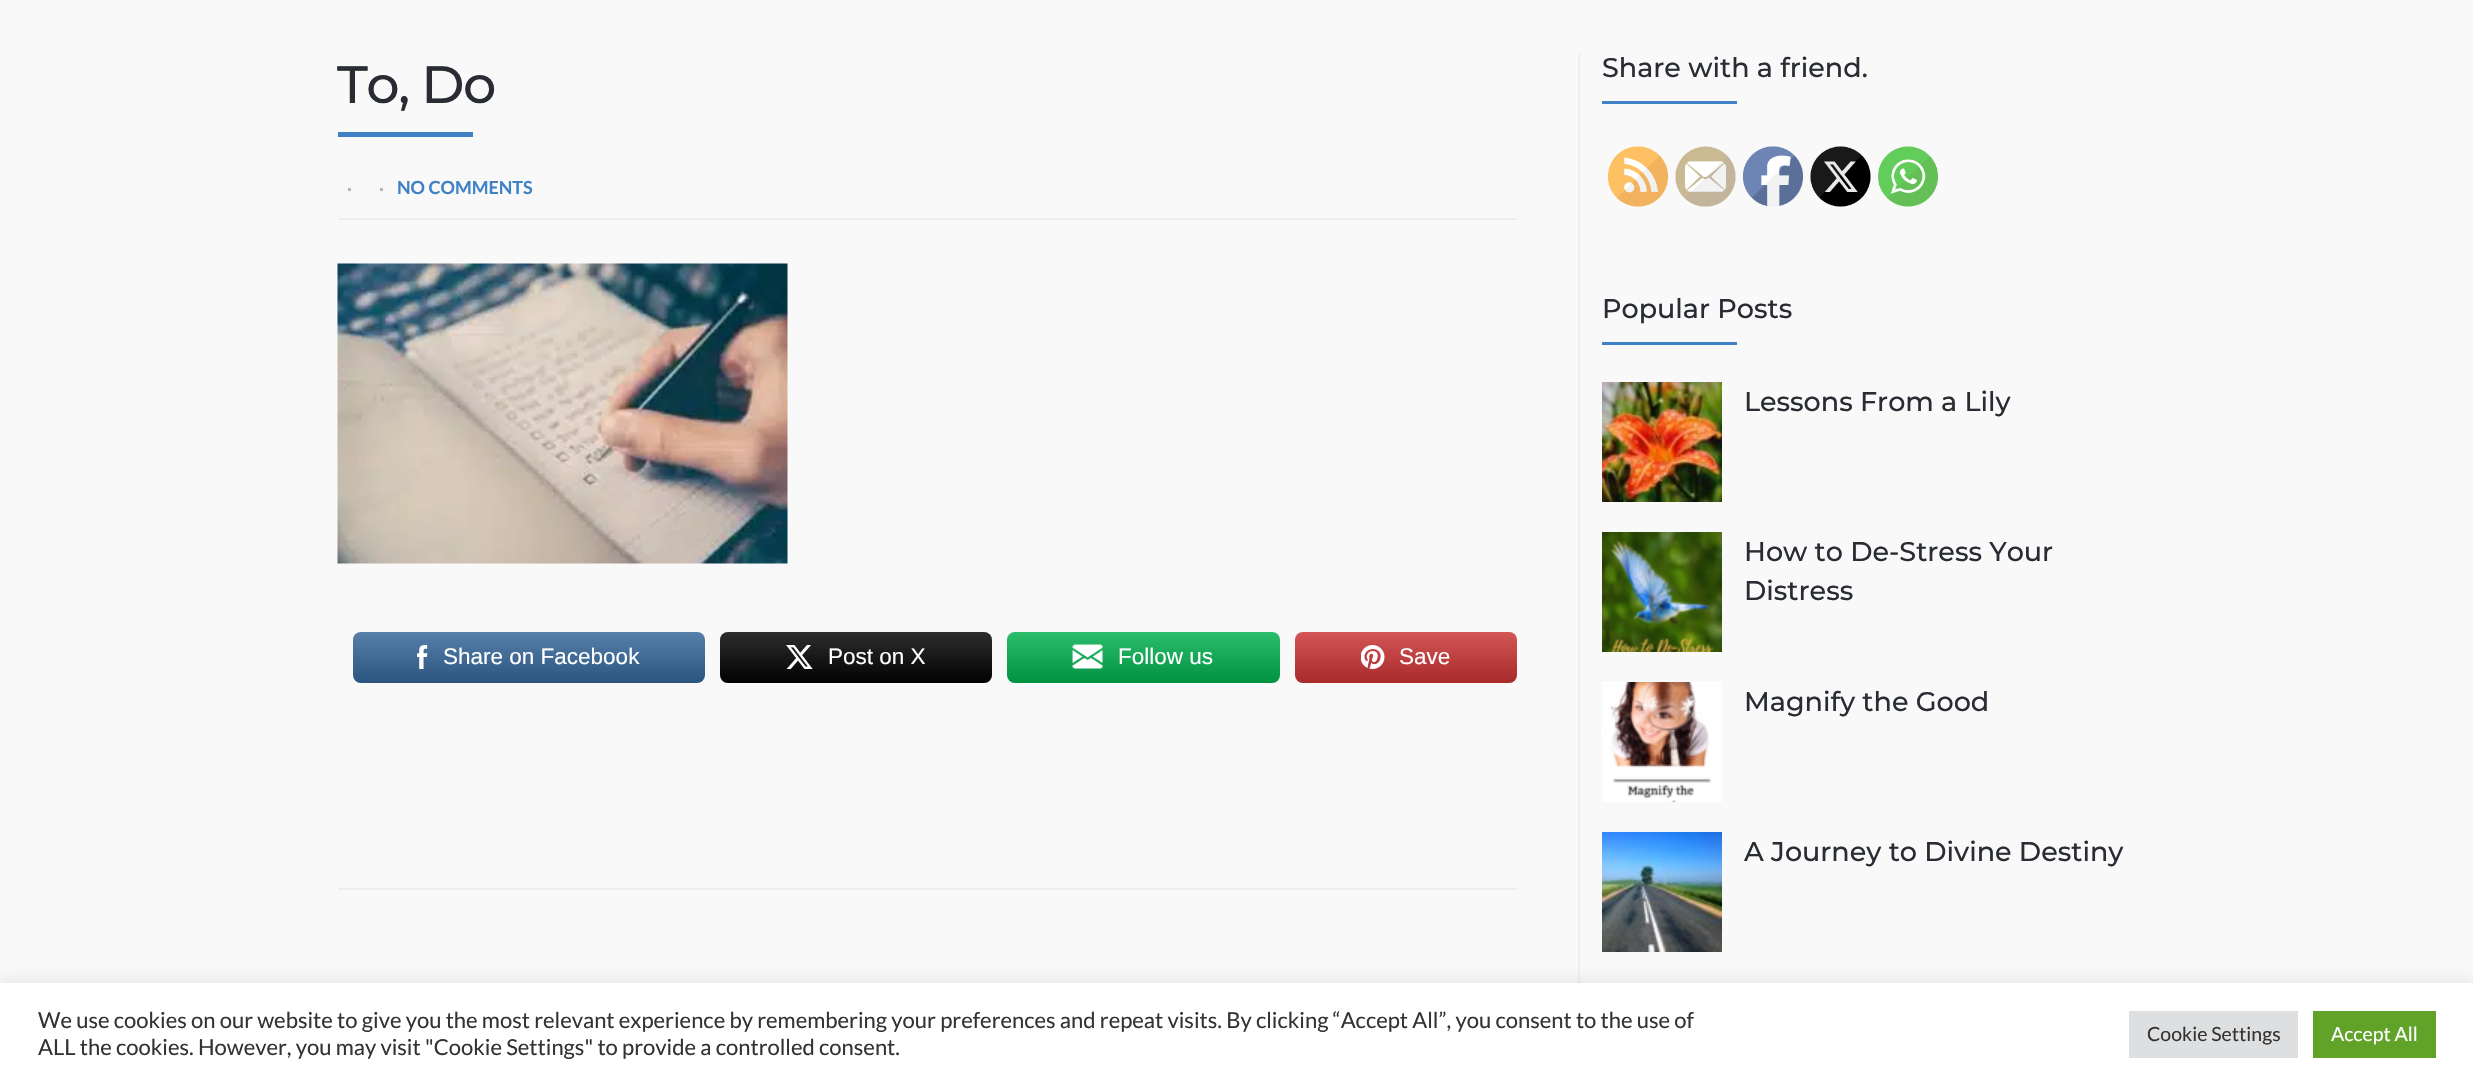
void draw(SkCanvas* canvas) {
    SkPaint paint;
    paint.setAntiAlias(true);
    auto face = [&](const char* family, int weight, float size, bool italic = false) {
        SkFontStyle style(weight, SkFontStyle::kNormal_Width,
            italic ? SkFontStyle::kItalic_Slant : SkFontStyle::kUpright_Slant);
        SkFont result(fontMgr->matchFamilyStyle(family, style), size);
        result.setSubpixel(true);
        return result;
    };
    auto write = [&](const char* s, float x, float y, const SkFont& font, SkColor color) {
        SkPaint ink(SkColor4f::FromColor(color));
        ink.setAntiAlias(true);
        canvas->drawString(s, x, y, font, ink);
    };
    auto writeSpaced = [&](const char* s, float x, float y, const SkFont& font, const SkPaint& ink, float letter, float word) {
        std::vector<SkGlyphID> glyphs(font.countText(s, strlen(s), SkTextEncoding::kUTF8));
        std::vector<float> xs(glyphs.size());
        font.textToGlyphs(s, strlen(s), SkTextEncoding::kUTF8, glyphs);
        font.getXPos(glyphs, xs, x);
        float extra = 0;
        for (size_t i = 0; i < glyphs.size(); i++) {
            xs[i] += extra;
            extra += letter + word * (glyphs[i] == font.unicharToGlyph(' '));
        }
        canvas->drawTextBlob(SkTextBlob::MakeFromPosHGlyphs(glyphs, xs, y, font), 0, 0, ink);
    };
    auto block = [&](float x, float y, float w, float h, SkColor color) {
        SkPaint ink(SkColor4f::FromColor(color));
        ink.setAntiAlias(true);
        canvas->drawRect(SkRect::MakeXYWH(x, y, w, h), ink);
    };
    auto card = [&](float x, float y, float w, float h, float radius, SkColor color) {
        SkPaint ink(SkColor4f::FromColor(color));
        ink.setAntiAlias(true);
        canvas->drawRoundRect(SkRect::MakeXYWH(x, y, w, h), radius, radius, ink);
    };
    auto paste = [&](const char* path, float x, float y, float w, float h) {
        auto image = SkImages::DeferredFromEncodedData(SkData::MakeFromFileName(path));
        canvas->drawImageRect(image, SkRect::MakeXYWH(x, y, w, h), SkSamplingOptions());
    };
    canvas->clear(SkColorSetRGB(249, 249, 249));
    auto kFont1 = face("Montserrat", 500, 52.5f);
    paint.setColor(SkColorSetRGB(41, 44, 51));
    writeSpaced("To, Do", 337, 103, kFont1, paint, -1.5f, 0);
    block(338, 132, 135, 5, SkColorSetRGB(64, 130, 198));
    block(338, 218, 1179, 2, SkColorSetRGB(238, 238, 238));
    block(348, 188, 3, 3, SkColorSetRGB(174, 182, 185));
    block(380, 188, 3, 3, SkColorSetRGB(174, 182, 185));
    auto kFont2 = face("Lato", 700, 18);
    write("NO COMMENTS", 397, 194, kFont2, SkColorSetRGB(64, 130, 198));
    paste("pic1.png", 337, 263, 451, 301);
    card(353, 632, 352, 51, 8, SkColorSetRGB(51, 102, 153));
    {
        const SkColor colors[] = {SkColorSetARGB(43, 0, 0, 0), SkColorSetARGB(43, 255, 255, 255)};
        const float stops[] = {0, 1};
        const SkPoint ends[] = {{529, 683}, {529, 632}};
        paint.setShader(SkGradientShader::MakeLinear(ends, colors, stops, 2, SkTileMode::kClamp));
        paint.setAlpha(255);
    }
    canvas->drawRoundRect(SkRect::MakeXYWH(353, 632, 352, 51), 8, 8, paint);
    paste("pic2.png", 417, 645, 11, 24);
    auto kFont3 = face("Liberation Sans", 400, 22.5f);
    write("Share on Facebook", 443, 664, kFont3, SK_ColorWHITE);
    card(720, 632, 272, 51, 8, SkColorSetRGB(2, 2, 2));
    {
        const SkColor colors[] = {SkColorSetARGB(43, 0, 0, 0), SkColorSetARGB(43, 255, 255, 255)};
        const float stops[] = {0, 1};
        const SkPoint ends[] = {{856, 683}, {856, 632}};
        paint.setShader(SkGradientShader::MakeLinear(ends, colors, stops, 2, SkTileMode::kClamp));
        paint.setAlpha(255);
    }
    canvas->drawRoundRect(SkRect::MakeXYWH(720, 632, 272, 51), 8, 8, paint);
    paste("pic3.png", 786, 645, 27, 24);
    write("Post on X", 828, 664, kFont3, SK_ColorWHITE);
    card(1007, 632, 273, 51, 8, SkColorSetRGB(0, 176, 78));
    {
        const SkColor colors[] = {SkColorSetARGB(43, 0, 0, 0), SkColorSetARGB(43, 255, 255, 255)};
        const float stops[] = {0, 1};
        const SkPoint ends[] = {{1143, 683}, {1143, 632}};
        paint.setShader(SkGradientShader::MakeLinear(ends, colors, stops, 2, SkTileMode::kClamp));
        paint.setAlpha(255);
    }
    canvas->drawRoundRect(SkRect::MakeXYWH(1007, 632, 273, 51), 8, 8, paint);
    paste("pic4.png", 1072, 644, 31, 25);
    write("Follow us", 1118, 664, kFont3, SK_ColorWHITE);
    card(1295, 632, 222, 51, 8, SkColorSetRGB(203, 50, 51));
    {
        const SkColor colors[] = {SkColorSetARGB(43, 0, 0, 0), SkColorSetARGB(43, 255, 255, 255)};
        const float stops[] = {0, 1};
        const SkPoint ends[] = {{1406, 683}, {1406, 632}};
        paint.setShader(SkGradientShader::MakeLinear(ends, colors, stops, 2, SkTileMode::kClamp));
        paint.setAlpha(255);
    }
    canvas->drawRoundRect(SkRect::MakeXYWH(1295, 632, 222, 51), 8, 8, paint);
    paste("pic5.png", 1361, 645, 24, 24);
    write("Save", 1399, 664, kFont3, SK_ColorWHITE);
    block(338, 888, 1179, 2, SkColorSetRGB(238, 238, 238));
    block(1578, 54, 2, 929, SkColorSetRGB(238, 238, 238));
    auto kFont4 = face("Montserrat", 500, 27);
    write("Share with a friend.", 1602, 77, kFont4, SkColorSetRGB(41, 44, 51));
    block(1602, 101, 135, 3, SkColorSetRGB(64, 130, 198));
    paste("pic6.png", 1608, 146, 60, 61);
    paste("pic7.png", 1675, 146, 61, 61);
    paste("pic8.png", 1743, 146, 60, 61);
    paste("pic9.png", 1810, 146, 61, 61);
    paste("pic10.png", 1878, 146, 60, 61);
    write("Popular Posts", 1602, 318, kFont4, SkColorSetRGB(41, 44, 51));
    block(1602, 342, 135, 3, SkColorSetRGB(64, 130, 198));
    paste("pic11.png", 1602, 382, 120, 120);
    write("Lessons From a Lily", 1744, 411, kFont4, SkColorSetRGB(41, 44, 51));
    paste("pic12.png", 1602, 532, 120, 120);
    write("How to De-Stress Your", 1744, 561, kFont4, SkColorSetRGB(41, 44, 51));
    write("Distress", 1744, 600, kFont4, SkColorSetRGB(41, 44, 51));
    paste("pic13.png", 1602, 682, 120, 120);
    write("Magnify the Good", 1744, 711, kFont4, SkColorSetRGB(41, 44, 51));
    paste("pic14.png", 1602, 832, 120, 120);
    write("A Journey to Divine Destiny", 1744, 861, kFont4, SkColorSetRGB(41, 44, 51));
    paint.setShader(nullptr);
    paint.setColor(SkColorSetARGB(77, 172, 171, 171));
    paint.setMaskFilter(SkMaskFilter::MakeBlur(kNormal_SkBlurStyle, 7.5f));
    canvas->drawRect(SkRect::MakeXYWH(0, 981, 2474, 104), paint);
    paint.setMaskFilter(nullptr);
    block(0, 983, 2473, 102, SK_ColorWHITE);
    auto kFont5 = face("Lato", 400, 22);
    write("We use cookies on our website to give you the most relevant experience by remembering your preferences and repeat visits. By clicking “Accept All”, you consent to the use of", 38, 1028, kFont5, SkColorSetRGB(51, 51, 51));
    write("ALL the cookies. However, you may visit \"Cookie Settings\" to provide a controlled consent.", 38, 1055, kFont5, SkColorSetRGB(51, 51, 51));
    block(2129, 1011, 169, 47, SkColorSetRGB(222, 223, 224));
    auto kFont6 = face("Lato", 400, 19.5f);
    write("Cookie Settings", 2147, 1041, kFont6, SkColorSetRGB(51, 51, 51));
    block(2313, 1011, 123, 47, SkColorSetRGB(97, 162, 41));
    write("Accept All", 2331, 1041, kFont6, SK_ColorWHITE);
}
